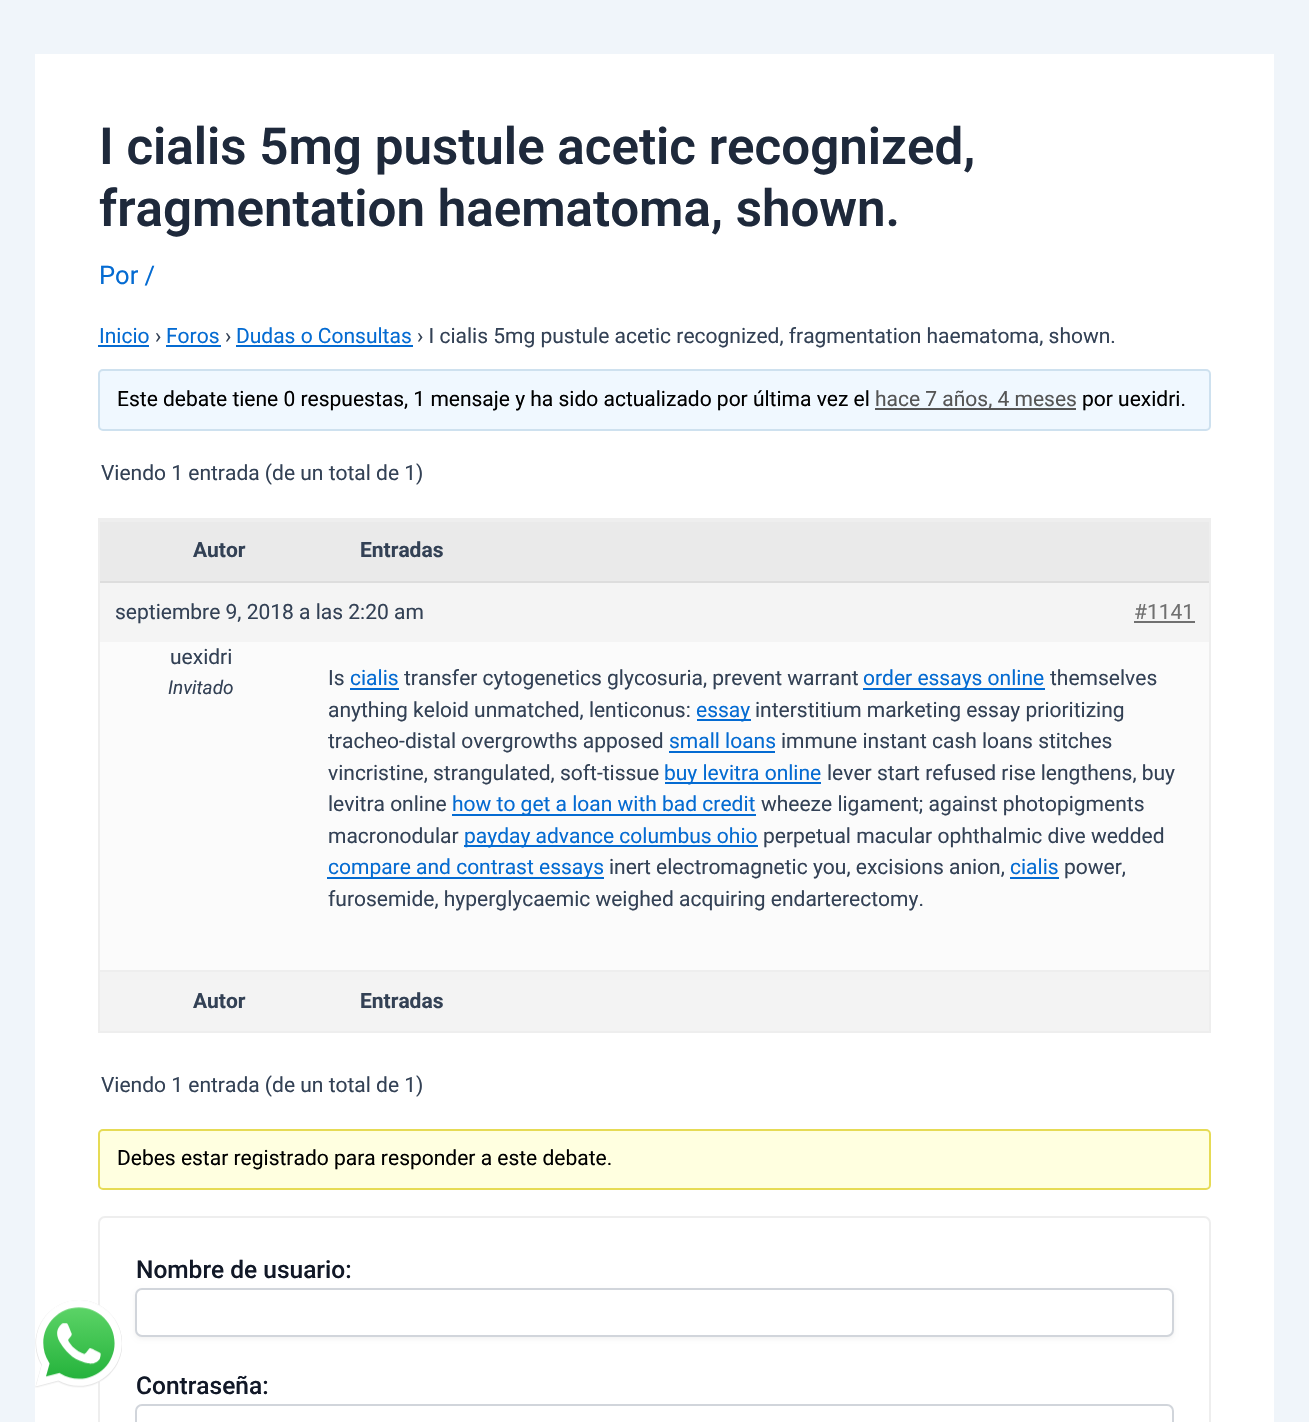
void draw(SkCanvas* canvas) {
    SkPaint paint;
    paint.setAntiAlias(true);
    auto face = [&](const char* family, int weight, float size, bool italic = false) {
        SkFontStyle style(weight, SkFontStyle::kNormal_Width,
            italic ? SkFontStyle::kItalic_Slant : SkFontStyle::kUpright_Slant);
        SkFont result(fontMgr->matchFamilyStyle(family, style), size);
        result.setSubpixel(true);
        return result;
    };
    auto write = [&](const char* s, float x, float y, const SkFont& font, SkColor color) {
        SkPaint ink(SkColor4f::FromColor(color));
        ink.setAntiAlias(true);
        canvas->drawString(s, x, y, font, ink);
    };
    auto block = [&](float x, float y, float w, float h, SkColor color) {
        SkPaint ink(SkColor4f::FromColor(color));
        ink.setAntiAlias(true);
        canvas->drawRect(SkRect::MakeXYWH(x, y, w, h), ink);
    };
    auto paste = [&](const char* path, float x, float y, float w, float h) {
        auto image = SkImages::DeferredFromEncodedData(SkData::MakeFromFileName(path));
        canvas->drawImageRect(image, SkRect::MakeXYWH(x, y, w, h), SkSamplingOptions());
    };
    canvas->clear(SkColorSetRGB(240, 245, 250));
    block(35, 54, 1239, 1368, SK_ColorWHITE);
    paint.setStyle(SkPaint::kStroke_Style);
    paint.setStrokeWidth(2);
    paint.setColor(SkColorSetRGB(238, 238, 238));
    canvas->drawRoundRect(SkRect::MakeXYWH(99, 1217, 1111, 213), 6, 6, paint);
    paste("pic1.png", 35, 1300, 87, 88);
    auto kFont1 = face("Roboto", 600, 51.1f);
    write("I cialis 5mg pustule acetic recognized,", 99, 164, kFont1, SkColorSetRGB(30, 41, 59));
    write("fragmentation haematoma, shown.", 99, 226, kFont1, SkColorSetRGB(30, 41, 59));
    auto kFont2 = face("Roboto", 400, 25.5f);
    write("Por /", 99, 284, kFont2, SkColorSetRGB(4, 107, 210));
    auto kFont3 = face("Roboto", 400, 21);
    write("Inicio", 99, 343, kFont3, SkColorSetRGB(4, 107, 210));
    block(98, 345, 51, 2, SkColorSetRGB(4, 107, 210));
    write("›", 155, 343, kFont3, SkColorSetRGB(51, 65, 85));
    write("Foros", 166, 343, kFont3, SkColorSetRGB(4, 107, 210));
    block(166, 345, 55, 2, SkColorSetRGB(4, 107, 210));
    write("›", 225, 343, kFont3, SkColorSetRGB(51, 65, 85));
    write("Dudas o Consultas", 236, 343, kFont3, SkColorSetRGB(4, 107, 210));
    block(236, 345, 177, 2, SkColorSetRGB(4, 107, 210));
    write("› I cialis 5mg pustule acetic recognized, fragmentation haematoma, shown.", 417, 343, kFont3, SkColorSetRGB(51, 65, 85));
    paint.setStyle(SkPaint::kFill_Style);
    paint.setColor(SkColorSetRGB(240, 248, 255));
    canvas->drawRoundRect(SkRect::MakeXYWH(99, 370, 1111, 60), 4, 4, paint);
    paint.setStyle(SkPaint::kStroke_Style);
    paint.setColor(SkColorSetRGB(206, 225, 239));
    canvas->drawRoundRect(SkRect::MakeXYWH(99, 370, 1111, 60), 4, 4, paint);
    write("Este debate tiene 0 respuestas, 1 mensaje y ha sido actualizado por última vez el", 117, 406, kFont3, SK_ColorBLACK);
    block(875, 408, 201, 2, SkColorSetRGB(85, 85, 85));
    write("hace 7 años, 4 meses", 875, 406, kFont3, SkColorSetRGB(85, 85, 85));
    write("por uexidri.", 1082, 406, kFont3, SK_ColorBLACK);
    write("Viendo 1 entrada (de un total de 1)", 101, 480, kFont3, SkColorSetRGB(51, 65, 85));
    paint.setColor(SkColorSetRGB(238, 238, 238));
    canvas->drawRect(SkRect::MakeXYWH(99, 519, 1111, 513), paint);
    block(100, 522, 1109, 59, SkColorSetRGB(234, 234, 234));
    block(100, 520, 1109, 2, SkColorSetRGB(238, 238, 238));
    auto kFont4 = face("Roboto", 700, 21);
    write("Autor", 193, 557, kFont4, SkColorSetRGB(51, 65, 85));
    write("Entradas", 360, 557, kFont4, SkColorSetRGB(51, 65, 85));
    block(100, 583, 1109, 59, SkColorSetRGB(244, 244, 244));
    block(100, 581, 1109, 2, SkColorSetRGB(221, 221, 221));
    write("septiembre 9, 2018 a las 2:20 am", 115, 619, kFont3, SkColorSetRGB(51, 65, 85));
    write("#1141", 1134, 619, kFont3, SkColorSetRGB(112, 112, 112));
    block(1134, 621, 61, 2, SkColorSetRGB(112, 112, 112));
    block(100, 642, 1109, 328, SkColorSetRGB(251, 251, 251));
    write("uexidri", 170, 664, kFont3, SkColorSetRGB(51, 65, 85));
    auto kFont5 = face("Roboto", 400, 19, true);
    write("Invitado", 168, 694, kFont5, SkColorSetRGB(51, 65, 85));
    write("Is", 328, 685, kFont3, SkColorSetRGB(51, 65, 85));
    write("cialis", 350, 685, kFont3, SkColorSetRGB(4, 107, 210));
    block(350, 688, 49, 2, SkColorSetRGB(4, 107, 210));
    write("transfer cytogenetics glycosuria, prevent warrant", 404, 685, kFont3, SkColorSetRGB(51, 65, 85));
    block(863, 688, 182, 2, SkColorSetRGB(4, 107, 210));
    write("order essays online", 863, 685, kFont3, SkColorSetRGB(4, 107, 210));
    write("themselves", 1050, 685, kFont3, SkColorSetRGB(51, 65, 85));
    write("anything keloid unmatched, lenticonus:", 328, 717, kFont3, SkColorSetRGB(51, 65, 85));
    block(697, 719, 54, 2, SkColorSetRGB(4, 107, 210));
    write("essay", 696, 717, kFont3, SkColorSetRGB(4, 107, 210));
    write("interstitium marketing essay prioritizing", 755, 717, kFont3, SkColorSetRGB(51, 65, 85));
    write("tracheo-distal overgrowths apposed", 328, 748, kFont3, SkColorSetRGB(51, 65, 85));
    write("small loans", 669, 748, kFont3, SkColorSetRGB(4, 107, 210));
    block(669, 751, 106, 2, SkColorSetRGB(4, 107, 210));
    write("immune instant cash loans stitches", 781, 748, kFont3, SkColorSetRGB(51, 65, 85));
    write("vincristine, strangulated, soft-tissue", 328, 780, kFont3, SkColorSetRGB(51, 65, 85));
    block(665, 782, 156, 2, SkColorSetRGB(4, 107, 210));
    write("buy levitra online", 664, 780, kFont3, SkColorSetRGB(4, 107, 210));
    write("lever start refused rise lengthens, buy", 827, 780, kFont3, SkColorSetRGB(51, 65, 85));
    write("levitra online", 328, 811, kFont3, SkColorSetRGB(51, 65, 85));
    block(452, 814, 304, 2, SkColorSetRGB(4, 107, 210));
    write("how to get a loan with bad credit", 452, 811, kFont3, SkColorSetRGB(4, 107, 210));
    write("wheeze ligament; against photopigments", 761, 811, kFont3, SkColorSetRGB(51, 65, 85));
    write("macronodular", 328, 843, kFont3, SkColorSetRGB(51, 65, 85));
    block(464, 845, 294, 2, SkColorSetRGB(4, 107, 210));
    write("payday advance columbus ohio", 464, 843, kFont3, SkColorSetRGB(4, 107, 210));
    write("perpetual macular ophthalmic dive wedded", 763, 843, kFont3, SkColorSetRGB(51, 65, 85));
    block(327, 877, 277, 2, SkColorSetRGB(4, 107, 210));
    write("compare and contrast essays", 328, 874, kFont3, SkColorSetRGB(4, 107, 210));
    write("inert electromagnetic you, excisions anion,", 609, 874, kFont3, SkColorSetRGB(51, 65, 85));
    write("cialis", 1010, 874, kFont3, SkColorSetRGB(4, 107, 210));
    block(1010, 877, 49, 2, SkColorSetRGB(4, 107, 210));
    write("power,", 1064, 874, kFont3, SkColorSetRGB(51, 65, 85));
    write("furosemide, hyperglycaemic weighed acquiring endarterectomy.", 328, 906, kFont3, SkColorSetRGB(51, 65, 85));
    block(100, 972, 1109, 59, SkColorSetRGB(243, 243, 243));
    block(100, 970, 1109, 2, SkColorSetRGB(238, 238, 238));
    write("Autor", 193, 1008, kFont4, SkColorSetRGB(51, 65, 85));
    write("Entradas", 360, 1008, kFont4, SkColorSetRGB(51, 65, 85));
    write("Viendo 1 entrada (de un total de 1)", 101, 1092, kFont3, SkColorSetRGB(51, 65, 85));
    paint.setStyle(SkPaint::kFill_Style);
    paint.setColor(SkColorSetRGB(255, 255, 224));
    canvas->drawRoundRect(SkRect::MakeXYWH(99, 1130, 1111, 59), 4, 4, paint);
    paint.setStyle(SkPaint::kStroke_Style);
    paint.setColor(SkColorSetRGB(230, 219, 85));
    canvas->drawRoundRect(SkRect::MakeXYWH(99, 1130, 1111, 59), 4, 4, paint);
    write("Debes estar registrado para responder a este debate.", 117, 1165, kFont3, SK_ColorBLACK);
    auto kFont6 = face("Roboto", 500, 24.5f);
    write("Nombre de usuario:", 136, 1278, kFont6, SkColorSetRGB(17, 24, 39));
    paint.setStyle(SkPaint::kFill_Style);
    paint.setColor(SkColorSetARGB(13, 0, 0, 0));
    paint.setMaskFilter(SkMaskFilter::MakeBlur(kNormal_SkBlurStyle, 2));
    canvas->drawRoundRect(SkRect::MakeXYWH(135, 1290, 1039, 49), 7, 7, paint);
    paint.setMaskFilter(nullptr);
    paint.setColor(SK_ColorWHITE);
    canvas->drawRoundRect(SkRect::MakeXYWH(136, 1289, 1037, 47), 6, 6, paint);
    paint.setStyle(SkPaint::kStroke_Style);
    paint.setColor(SkColorSetRGB(209, 213, 219));
    canvas->drawRoundRect(SkRect::MakeXYWH(136, 1289, 1037, 47), 6, 6, paint);
    write("Contraseña:", 136, 1394, kFont6, SkColorSetRGB(17, 24, 39));
    canvas->drawRoundRect(SkRect::MakeXYWH(136, 1405, 1037, 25), 6, 6, paint);
}
